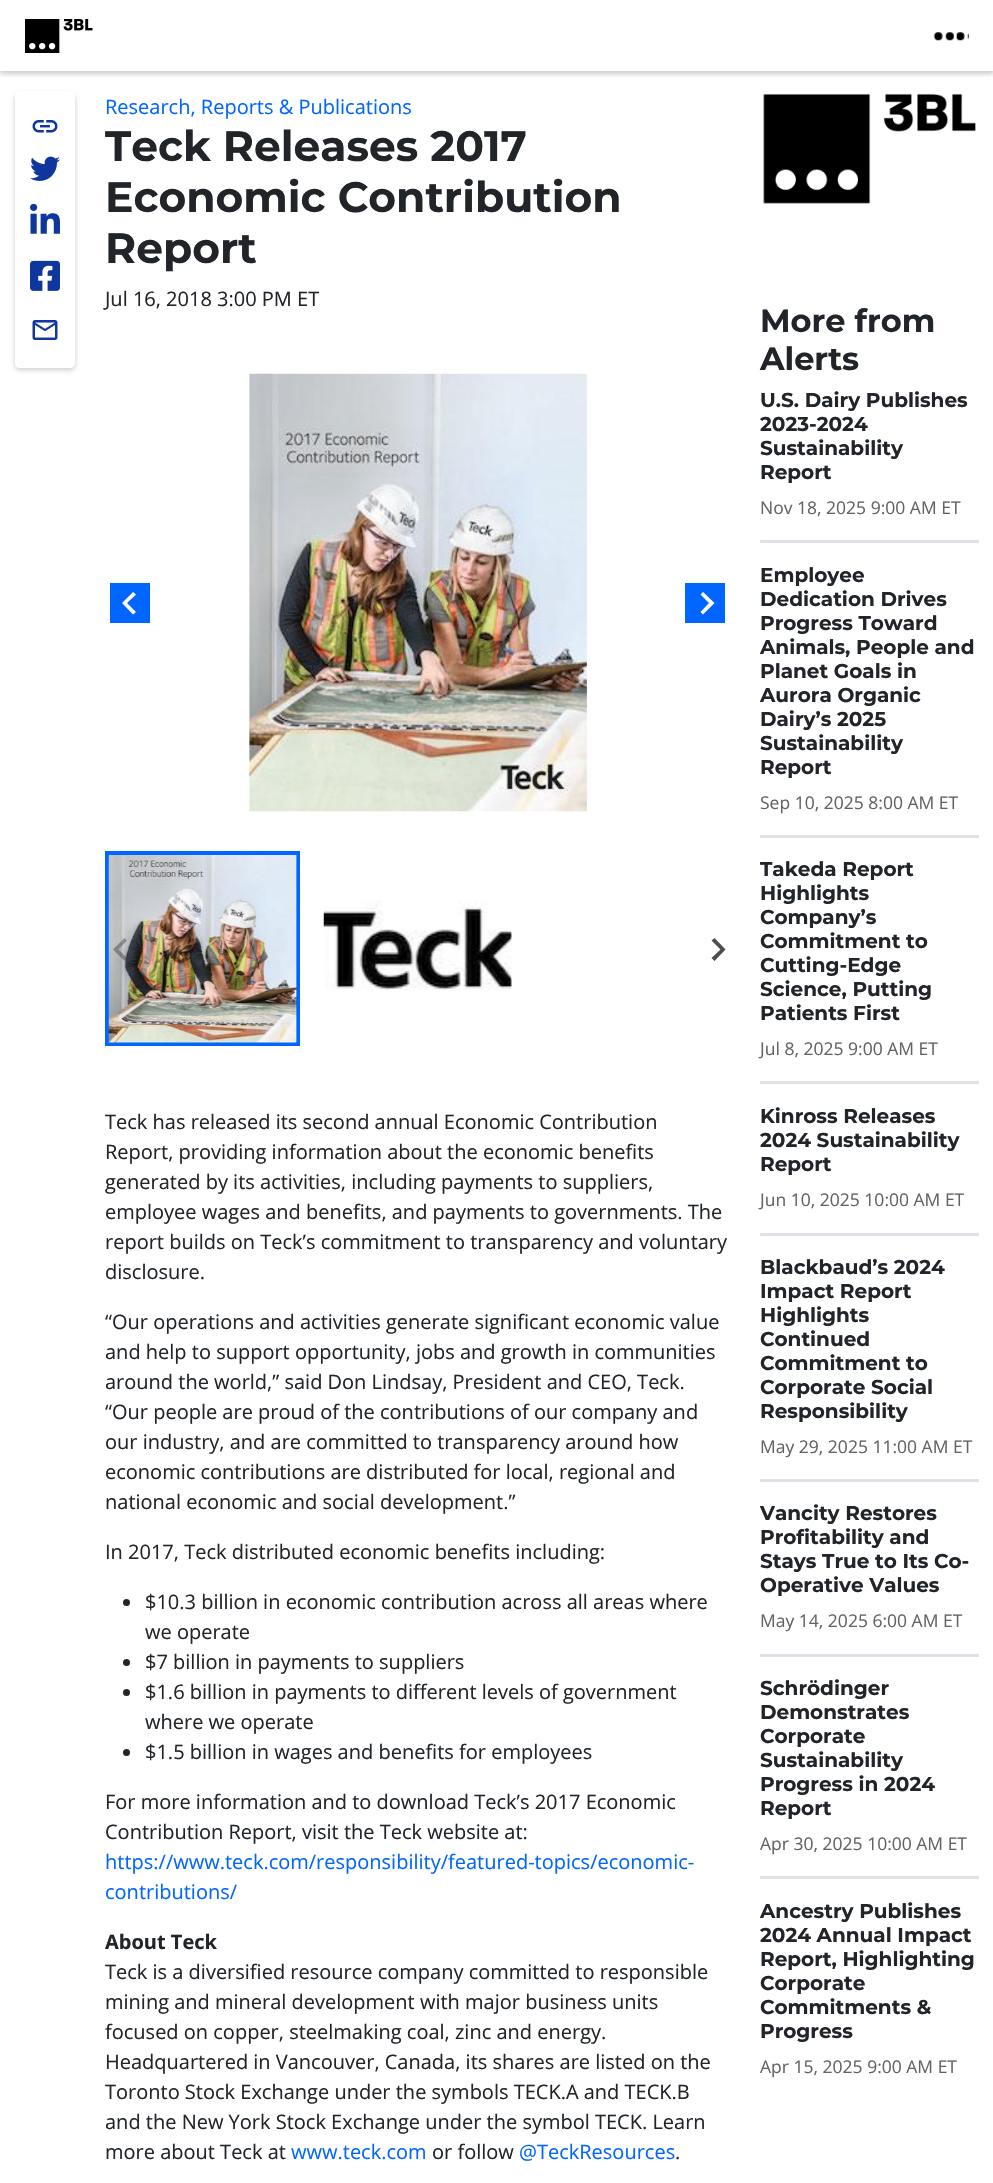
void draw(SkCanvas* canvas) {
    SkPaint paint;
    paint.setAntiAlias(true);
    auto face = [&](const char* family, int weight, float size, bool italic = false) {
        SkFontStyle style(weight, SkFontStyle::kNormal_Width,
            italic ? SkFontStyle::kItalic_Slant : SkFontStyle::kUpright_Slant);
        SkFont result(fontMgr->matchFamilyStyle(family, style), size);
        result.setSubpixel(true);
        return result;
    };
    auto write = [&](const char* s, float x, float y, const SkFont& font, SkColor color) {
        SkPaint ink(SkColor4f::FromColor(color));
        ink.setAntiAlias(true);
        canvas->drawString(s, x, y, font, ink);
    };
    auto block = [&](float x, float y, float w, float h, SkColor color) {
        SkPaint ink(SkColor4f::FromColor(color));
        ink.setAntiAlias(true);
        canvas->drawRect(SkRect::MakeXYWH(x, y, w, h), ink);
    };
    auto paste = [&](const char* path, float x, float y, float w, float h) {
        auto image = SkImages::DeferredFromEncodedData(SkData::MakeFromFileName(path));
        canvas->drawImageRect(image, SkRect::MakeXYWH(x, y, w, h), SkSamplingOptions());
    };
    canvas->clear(SK_ColorWHITE);
    canvas->save();
    canvas->clipRect(SkRect::MakeXYWH(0, 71, 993, 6));
    paint.setColor(SkColorSetARGB(51, 0, 0, 0));
    paint.setMaskFilter(SkMaskFilter::MakeBlur(kNormal_SkBlurStyle, 2.5f));
    canvas->drawRect(SkRect::MakeXYWH(0, 3, 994, 71), paint);
    paint.setMaskFilter(nullptr);
    canvas->restore();
    paste("pic1.png", 25, 19, 68, 34);
    paste("pic2.png", 933, 32, 36, 9);
    canvas->save();
    canvas->clipPath(SkPathBuilder(SkPathFillType::kEvenOdd).moveTo(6, 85).lineTo(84, 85).lineTo(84, 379).lineTo(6, 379).close().moveTo(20, 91).lineTo(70, 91).cubicTo(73, 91, 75, 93, 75, 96).lineTo(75, 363).cubicTo(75, 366, 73, 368, 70, 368).lineTo(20, 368).cubicTo(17, 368, 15, 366, 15, 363).lineTo(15, 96).cubicTo(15, 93, 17, 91, 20, 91).close().detach(), true);
    paint.setMaskFilter(SkMaskFilter::MakeBlur(kNormal_SkBlurStyle, 2.5f));
    canvas->drawRoundRect(SkRect::MakeXYWH(15, 94, 60, 276), 5, 5, paint);
    paint.setMaskFilter(nullptr);
    canvas->restore();
    paste("pic3.png", 32, 120, 26, 13);
    paste("pic4.png", 30, 156, 30, 25);
    paste("pic5.png", 30, 204, 30, 30);
    paste("pic6.png", 30, 260, 30, 31);
    paste("pic7.png", 32, 320, 26, 20);
    auto kFont1 = face("Open Sans", 400, 20);
    write("Research, Reports & Publications", 105, 114, kFont1, SkColorSetRGB(0, 102, 255));
    auto kFont2 = face("Montserrat", 700, 42.4f);
    write("Teck Releases 2017", 105, 161, kFont2, SkColorSetRGB(33, 37, 41));
    write("Economic Contribution", 105, 212, kFont2, SkColorSetRGB(33, 37, 41));
    write("Report", 105, 263, kFont2, SkColorSetRGB(33, 37, 41));
    write("Jul 16, 2018 3:00 PM ET", 105, 306, kFont1, SkColorSetRGB(33, 37, 41));
    paste("pic8.png", 249, 373, 338, 439);
    block(110, 583, 40, 40, SkColorSetRGB(0, 102, 255));
    paint.setColor(SK_ColorWHITE);
    canvas->drawPath(SkPathBuilder().moveTo(133, 592).lineTo(136, 594.5f).lineTo(127, 603).lineTo(136, 612).lineTo(133, 614.5f).lineTo(122, 603).close().detach(), paint);
    block(685, 583, 40, 40, SkColorSetRGB(0, 102, 255));
    canvas->drawPath(SkPathBuilder().moveTo(703, 592).lineTo(700.5f, 594.5f).lineTo(709, 603).lineTo(700.5f, 612).lineTo(703, 614.5f).lineTo(714.5f, 603).close().detach(), paint);
    paint.setStyle(SkPaint::kStroke_Style);
    paint.setStrokeWidth(4);
    paint.setColor(SkColorSetRGB(0, 102, 255));
    canvas->drawRect(SkRect::MakeXYWH(107, 853, 191, 191), paint);
    paste("pic9.png", 108, 855, 189, 188);
    paste("pic10.png", 323, 900, 189, 91);
    paint.setStyle(SkPaint::kFill_Style);
    paint.setColor(SkColorSetARGB(77, 0, 0, 0));
    canvas->drawPath(SkPathBuilder().moveTo(124.5f, 938).lineTo(127, 940.5f).lineTo(118.5f, 949.5f).lineTo(127, 958).lineTo(124.5f, 961).lineTo(113, 949.5f).close().detach(), paint);
    paint.setColor(SkColorSetRGB(77, 77, 77));
    canvas->drawPath(SkPathBuilder().moveTo(714.5f, 938).lineTo(711.5f, 940.5f).lineTo(720.5f, 949.5f).lineTo(711.5f, 958).lineTo(714.5f, 961).lineTo(725.5f, 949.5f).close().detach(), paint);
    write("Teck has released its second annual Economic Contribution", 105, 1129, kFont1, SkColorSetRGB(33, 37, 41));
    write("Report, providing information about the economic benefits", 105, 1159, kFont1, SkColorSetRGB(33, 37, 41));
    write("generated by its activities, including payments to suppliers,", 105, 1189, kFont1, SkColorSetRGB(33, 37, 41));
    write("employee wages and benefits, and payments to governments. The", 105, 1219, kFont1, SkColorSetRGB(33, 37, 41));
    write("report builds on Teck’s commitment to transparency and voluntary", 105, 1249, kFont1, SkColorSetRGB(33, 37, 41));
    write("disclosure.", 105, 1279, kFont1, SkColorSetRGB(33, 37, 41));
    write("“Our operations and activities generate significant economic value", 105, 1329, kFont1, SkColorSetRGB(33, 37, 41));
    write("and help to support opportunity, jobs and growth in communities", 105, 1359, kFont1, SkColorSetRGB(33, 37, 41));
    write("around the world,” said Don Lindsay, President and CEO, Teck.", 105, 1389, kFont1, SkColorSetRGB(33, 37, 41));
    write("“Our people are proud of the contributions of our company and", 105, 1419, kFont1, SkColorSetRGB(33, 37, 41));
    write("our industry, and are committed to transparency around how", 105, 1449, kFont1, SkColorSetRGB(33, 37, 41));
    write("economic contributions are distributed for local, regional and", 105, 1479, kFont1, SkColorSetRGB(33, 37, 41));
    write("national economic and social development.”", 105, 1509, kFont1, SkColorSetRGB(33, 37, 41));
    write("In 2017, Teck distributed economic benefits including:", 105, 1559, kFont1, SkColorSetRGB(33, 37, 41));
    paint.setColor(SkColorSetRGB(33, 37, 41));
    canvas->drawCircle(126.5f, 1602.5f, 3.5f, paint);
    write("$10.3 billion in economic contribution across all areas where", 145, 1609, kFont1, SkColorSetRGB(33, 37, 41));
    write("we operate", 145, 1639, kFont1, SkColorSetRGB(33, 37, 41));
    canvas->drawCircle(126.5f, 1662.5f, 3.5f, paint);
    write("$7 billion in payments to suppliers", 145, 1669, kFont1, SkColorSetRGB(33, 37, 41));
    canvas->drawCircle(126.5f, 1692.5f, 3.5f, paint);
    write("$1.6 billion in payments to different levels of government", 145, 1699, kFont1, SkColorSetRGB(33, 37, 41));
    write("where we operate", 145, 1729, kFont1, SkColorSetRGB(33, 37, 41));
    canvas->drawCircle(126.5f, 1752.5f, 3.5f, paint);
    write("$1.5 billion in wages and benefits for employees", 145, 1759, kFont1, SkColorSetRGB(33, 37, 41));
    write("For more information and to download Teck’s 2017 Economic", 105, 1809, kFont1, SkColorSetRGB(33, 37, 41));
    write("Contribution Report, visit the Teck website at:", 105, 1839, kFont1, SkColorSetRGB(33, 37, 41));
    write("https://www.teck.com/responsibility/featured-topics/economic-", 105, 1869, kFont1, SkColorSetRGB(0, 102, 255));
    write("contributions/", 105, 1899, kFont1, SkColorSetRGB(0, 102, 255));
    auto kFont3 = face("Open Sans", 700, 20);
    write("About Teck", 105, 1949, kFont3, SkColorSetRGB(33, 37, 41));
    write("Teck is a diversified resource company committed to responsible", 105, 1979, kFont1, SkColorSetRGB(33, 37, 41));
    write("mining and mineral development with major business units", 105, 2009, kFont1, SkColorSetRGB(33, 37, 41));
    write("focused on copper, steelmaking coal, zinc and energy.", 105, 2039, kFont1, SkColorSetRGB(33, 37, 41));
    write("Headquartered in Vancouver, Canada, its shares are listed on the", 105, 2069, kFont1, SkColorSetRGB(33, 37, 41));
    write("Toronto Stock Exchange under the symbols TECK.A and TECK.B", 105, 2099, kFont1, SkColorSetRGB(33, 37, 41));
    write("and the New York Stock Exchange under the symbol TECK. Learn", 105, 2129, kFont1, SkColorSetRGB(33, 37, 41));
    write("more about Teck at", 105, 2159, kFont1, SkColorSetRGB(33, 37, 41));
    write("www.teck.com", 291, 2159, kFont1, SkColorSetRGB(0, 102, 255));
    write("or follow", 432, 2159, kFont1, SkColorSetRGB(33, 37, 41));
    write("@TeckResources", 519, 2159, kFont1, SkColorSetRGB(0, 102, 255));
    write(".", 675, 2159, kFont1, SkColorSetRGB(33, 37, 41));
    paste("pic11.png", 763, 93, 213, 111);
    auto kFont4 = face("Montserrat", 700, 32);
    write("More from", 760, 332, kFont4, SkColorSetRGB(33, 37, 41));
    write("Alerts", 760, 370, kFont4, SkColorSetRGB(33, 37, 41));
    block(760, 540, 219, 3, SkColorSetRGB(222, 226, 230));
    auto kFont5 = face("Montserrat", 700, 20);
    write("U.S. Dairy Publishes", 760, 407, kFont5, SkColorSetRGB(33, 37, 41));
    write("2023-2024", 760, 431, kFont5, SkColorSetRGB(33, 37, 41));
    write("Sustainability", 760, 455, kFont5, SkColorSetRGB(33, 37, 41));
    write("Report", 760, 479, kFont5, SkColorSetRGB(33, 37, 41));
    auto kFont6 = face("Open Sans", 400, 17.5f);
    write("Nov 18, 2025 9:00 AM ET", 760, 514, kFont6, SkColorSetRGB(99, 99, 99));
    block(760, 835, 219, 3, SkColorSetRGB(222, 226, 230));
    write("Employee", 760, 582, kFont5, SkColorSetRGB(33, 37, 41));
    write("Dedication Drives", 760, 606, kFont5, SkColorSetRGB(33, 37, 41));
    write("Progress Toward", 760, 630, kFont5, SkColorSetRGB(33, 37, 41));
    write("Animals, People and", 760, 654, kFont5, SkColorSetRGB(33, 37, 41));
    write("Planet Goals in", 760, 678, kFont5, SkColorSetRGB(33, 37, 41));
    write("Aurora Organic", 760, 702, kFont5, SkColorSetRGB(33, 37, 41));
    write("Dairy’s 2025", 760, 726, kFont5, SkColorSetRGB(33, 37, 41));
    write("Sustainability", 760, 750, kFont5, SkColorSetRGB(33, 37, 41));
    write("Report", 760, 774, kFont5, SkColorSetRGB(33, 37, 41));
    write("Sep 10, 2025 8:00 AM ET", 760, 809, kFont6, SkColorSetRGB(99, 99, 99));
    block(760, 1081, 219, 3, SkColorSetRGB(222, 226, 230));
    write("Takeda Report", 760, 876, kFont5, SkColorSetRGB(33, 37, 41));
    write("Highlights", 760, 900, kFont5, SkColorSetRGB(33, 37, 41));
    write("Company’s", 760, 924, kFont5, SkColorSetRGB(33, 37, 41));
    write("Commitment to", 760, 948, kFont5, SkColorSetRGB(33, 37, 41));
    write("Cutting-Edge", 760, 972, kFont5, SkColorSetRGB(33, 37, 41));
    write("Science, Putting", 760, 996, kFont5, SkColorSetRGB(33, 37, 41));
    write("Patients First", 760, 1020, kFont5, SkColorSetRGB(33, 37, 41));
    write("Jul 8, 2025 9:00 AM ET", 760, 1055, kFont6, SkColorSetRGB(99, 99, 99));
    block(760, 1233, 219, 3, SkColorSetRGB(222, 226, 230));
    write("Kinross Releases", 760, 1123, kFont5, SkColorSetRGB(33, 37, 41));
    write("2024 Sustainability", 760, 1147, kFont5, SkColorSetRGB(33, 37, 41));
    write("Report", 760, 1171, kFont5, SkColorSetRGB(33, 37, 41));
    write("Jun 10, 2025 10:00 AM ET", 760, 1206, kFont6, SkColorSetRGB(99, 99, 99));
    block(760, 1479, 219, 3, SkColorSetRGB(222, 226, 230));
    write("Blackbaud’s 2024", 760, 1274, kFont5, SkColorSetRGB(33, 37, 41));
    write("Impact Report", 760, 1298, kFont5, SkColorSetRGB(33, 37, 41));
    write("Highlights", 760, 1322, kFont5, SkColorSetRGB(33, 37, 41));
    write("Continued", 760, 1346, kFont5, SkColorSetRGB(33, 37, 41));
    write("Commitment to", 760, 1370, kFont5, SkColorSetRGB(33, 37, 41));
    write("Corporate Social", 760, 1394, kFont5, SkColorSetRGB(33, 37, 41));
    write("Responsibility", 760, 1418, kFont5, SkColorSetRGB(33, 37, 41));
    write("May 29, 2025 11:00 AM ET", 760, 1453, kFont6, SkColorSetRGB(99, 99, 99));
    block(760, 1654, 219, 3, SkColorSetRGB(222, 226, 230));
    write("Vancity Restores", 760, 1520, kFont5, SkColorSetRGB(33, 37, 41));
    write("Profitability and", 760, 1544, kFont5, SkColorSetRGB(33, 37, 41));
    write("Stays True to Its Co-", 760, 1568, kFont5, SkColorSetRGB(33, 37, 41));
    write("Operative Values", 760, 1592, kFont5, SkColorSetRGB(33, 37, 41));
    write("May 14, 2025 6:00 AM ET", 760, 1627, kFont6, SkColorSetRGB(99, 99, 99));
    block(760, 1876, 219, 3, SkColorSetRGB(222, 226, 230));
    write("Schrödinger", 760, 1695, kFont5, SkColorSetRGB(33, 37, 41));
    write("Demonstrates", 760, 1719, kFont5, SkColorSetRGB(33, 37, 41));
    write("Corporate", 760, 1743, kFont5, SkColorSetRGB(33, 37, 41));
    write("Sustainability", 760, 1767, kFont5, SkColorSetRGB(33, 37, 41));
    write("Progress in 2024", 760, 1791, kFont5, SkColorSetRGB(33, 37, 41));
    write("Report", 760, 1815, kFont5, SkColorSetRGB(33, 37, 41));
    write("Apr 30, 2025 10:00 AM ET", 760, 1850, kFont6, SkColorSetRGB(99, 99, 99));
    write("Ancestry Publishes", 760, 1918, kFont5, SkColorSetRGB(33, 37, 41));
    write("2024 Annual Impact", 760, 1942, kFont5, SkColorSetRGB(33, 37, 41));
    write("Report, Highlighting", 760, 1966, kFont5, SkColorSetRGB(33, 37, 41));
    write("Corporate", 760, 1990, kFont5, SkColorSetRGB(33, 37, 41));
    write("Commitments &", 760, 2014, kFont5, SkColorSetRGB(33, 37, 41));
    write("Progress", 760, 2038, kFont5, SkColorSetRGB(33, 37, 41));
    write("Apr 15, 2025 9:00 AM ET", 760, 2073, kFont6, SkColorSetRGB(99, 99, 99));
}
